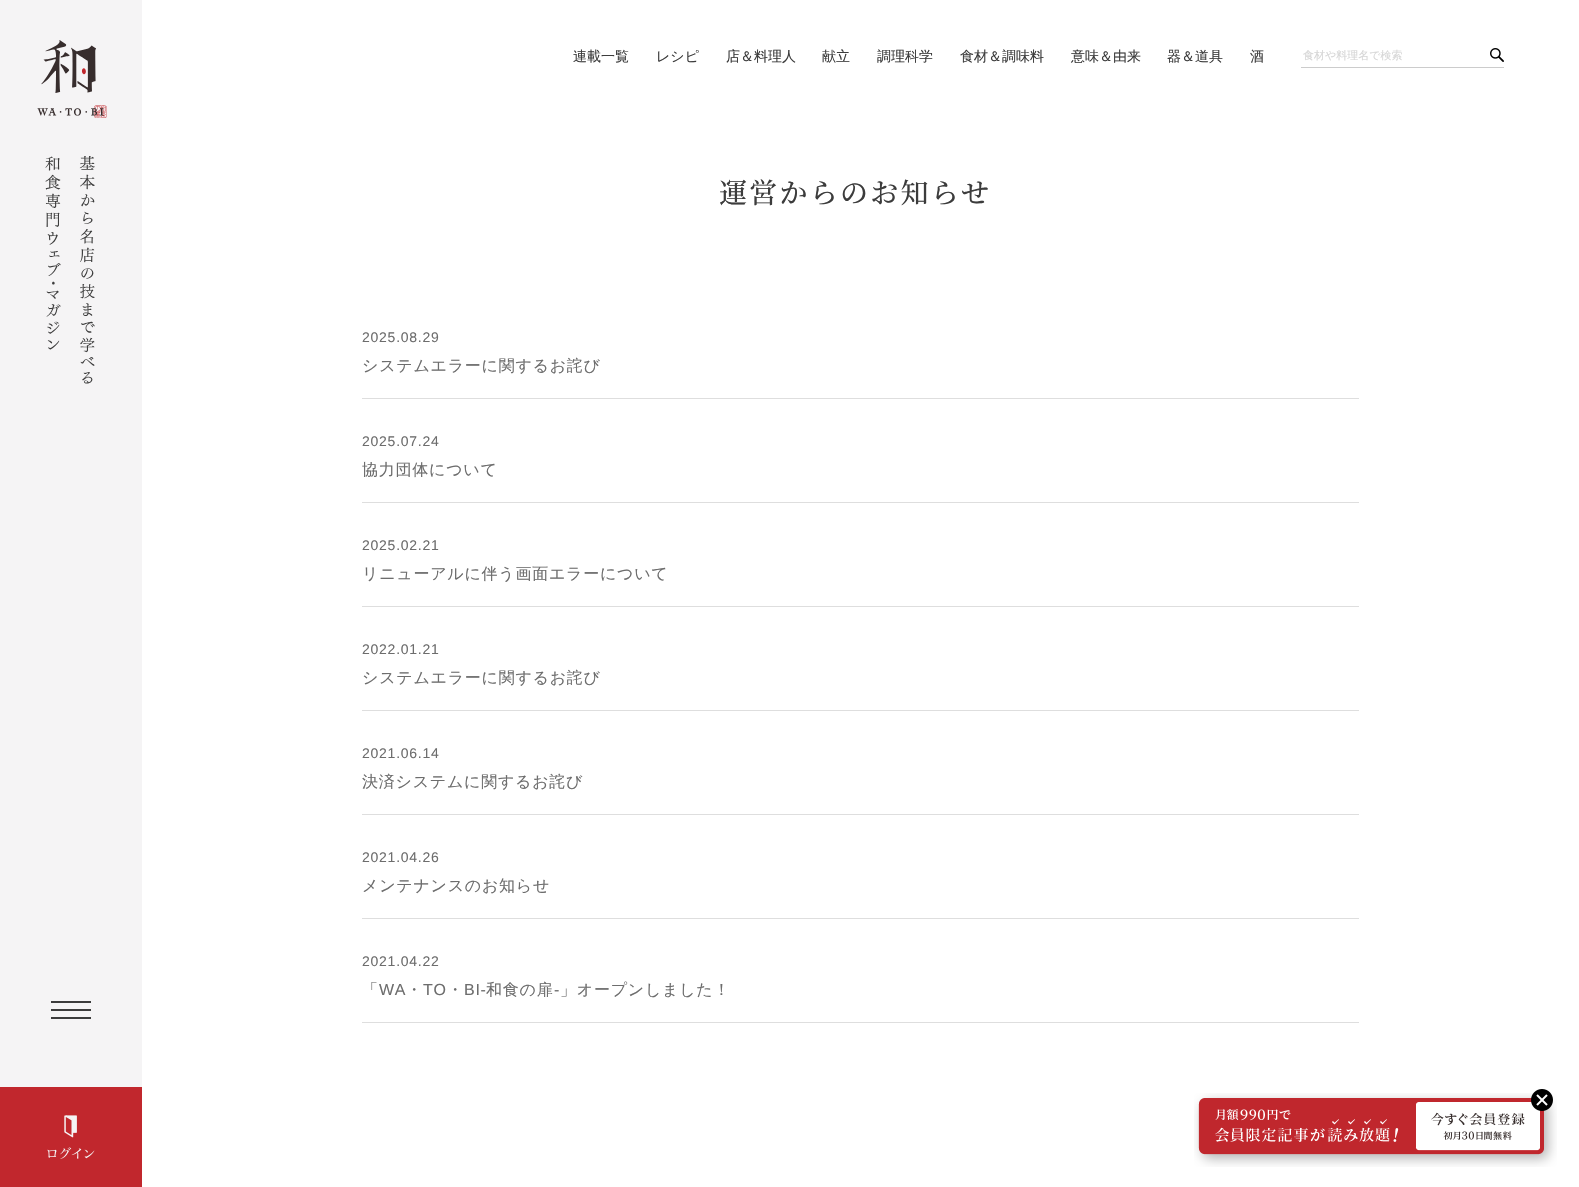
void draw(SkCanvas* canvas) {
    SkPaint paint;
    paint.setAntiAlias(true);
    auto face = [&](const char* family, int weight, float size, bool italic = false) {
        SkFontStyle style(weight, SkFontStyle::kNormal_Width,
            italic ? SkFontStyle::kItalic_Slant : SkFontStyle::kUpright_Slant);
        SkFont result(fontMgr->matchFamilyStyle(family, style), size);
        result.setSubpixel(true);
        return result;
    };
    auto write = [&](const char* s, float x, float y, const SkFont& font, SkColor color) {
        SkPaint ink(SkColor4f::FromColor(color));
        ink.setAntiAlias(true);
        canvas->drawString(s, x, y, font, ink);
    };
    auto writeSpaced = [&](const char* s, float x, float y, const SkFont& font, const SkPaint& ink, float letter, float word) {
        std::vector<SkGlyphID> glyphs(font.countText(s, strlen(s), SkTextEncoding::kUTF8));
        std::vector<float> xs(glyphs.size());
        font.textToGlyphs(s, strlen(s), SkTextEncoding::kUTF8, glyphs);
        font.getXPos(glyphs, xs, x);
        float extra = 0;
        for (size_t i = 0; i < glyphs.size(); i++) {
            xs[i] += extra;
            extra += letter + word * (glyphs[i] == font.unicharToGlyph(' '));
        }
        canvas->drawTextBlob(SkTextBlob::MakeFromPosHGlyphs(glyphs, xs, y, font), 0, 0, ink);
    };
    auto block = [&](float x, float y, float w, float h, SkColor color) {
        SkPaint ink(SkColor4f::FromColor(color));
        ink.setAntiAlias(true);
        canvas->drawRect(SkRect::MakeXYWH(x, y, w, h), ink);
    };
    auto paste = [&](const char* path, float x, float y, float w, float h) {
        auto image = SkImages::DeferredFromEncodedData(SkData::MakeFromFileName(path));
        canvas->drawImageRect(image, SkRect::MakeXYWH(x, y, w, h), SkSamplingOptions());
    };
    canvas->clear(SK_ColorWHITE);
    block(0, 0, 142, 1087, SkColorSetRGB(245, 244, 245));
    paste("pic1.png", 37, 40, 70, 344);
    block(51, 1001, 40, 2, SkColorSetRGB(60, 60, 60));
    block(51, 1009, 40, 2, SkColorSetRGB(60, 60, 60));
    block(51, 1017, 40, 2, SkColorSetRGB(60, 60, 60));
    block(0, 1087, 142, 100, SkColorSetRGB(193, 39, 45));
    paste("pic2.png", 47, 1115, 48, 44);
    auto kFont1 = face("WenQuanYi Zen Hei", 500, 14);
    write("連載一覧", 573, 61, kFont1, SkColorSetRGB(60, 60, 60));
    write("レシピ", 656, 61, kFont1, SkColorSetRGB(60, 60, 60));
    write("店＆料理人", 726, 61, kFont1, SkColorSetRGB(60, 60, 60));
    write("献立", 822, 61, kFont1, SkColorSetRGB(60, 60, 60));
    write("調理科学", 877, 61, kFont1, SkColorSetRGB(60, 60, 60));
    write("食材＆調味料", 960, 61, kFont1, SkColorSetRGB(60, 60, 60));
    write("意味＆由来", 1071, 61, kFont1, SkColorSetRGB(60, 60, 60));
    write("器＆道具", 1167, 61, kFont1, SkColorSetRGB(60, 60, 60));
    write("酒", 1250, 61, kFont1, SkColorSetRGB(60, 60, 60));
    block(1301, 67, 203, 1, SkColorSetRGB(204, 204, 204));
    auto kFont2 = face("WenQuanYi Zen Hei", 500, 11);
    write("食材や料理名で検索", 1303, 59, kFont2, SkColorSetRGB(214, 214, 214));
    paste("pic3.png", 1490, 48, 14, 14);
    auto kFont3 = face("Noto Serif JP", 500, 28);
    paint.setColor(SkColorSetRGB(60, 60, 60));
    writeSpaced("運営からのお知らせ", 719, 203, kFont3, paint, 2.25f, 0);
    block(362, 398, 997, 1, SkColorSetRGB(222, 222, 222));
    auto kFont4 = face("Liberation Sans", 400, 14);
    paint.setColor(SkColorSetRGB(109, 109, 109));
    writeSpaced("2025.08.29", 362, 342, kFont4, paint, 0.75f, 0);
    auto kFont5 = face("WenQuanYi Zen Hei", 500, 16);
    writeSpaced("システムエラーに関するお詫び", 362, 371, kFont5, paint, 0.75f, 0);
    block(362, 502, 997, 1, SkColorSetRGB(222, 222, 222));
    writeSpaced("2025.07.24", 362, 446, kFont4, paint, 0.75f, 0);
    writeSpaced("協力団体について", 362, 475, kFont5, paint, 0.75f, 0);
    block(362, 606, 997, 1, SkColorSetRGB(222, 222, 222));
    writeSpaced("2025.02.21", 362, 550, kFont4, paint, 0.75f, 0);
    writeSpaced("リニューアルに伴う画面エラーについて", 362, 579, kFont5, paint, 0.75f, 0);
    block(362, 710, 997, 1, SkColorSetRGB(222, 222, 222));
    writeSpaced("2022.01.21", 362, 654, kFont4, paint, 0.75f, 0);
    writeSpaced("システムエラーに関するお詫び", 362, 683, kFont5, paint, 0.75f, 0);
    block(362, 814, 997, 1, SkColorSetRGB(222, 222, 222));
    writeSpaced("2021.06.14", 362, 758, kFont4, paint, 0.75f, 0);
    writeSpaced("決済システムに関するお詫び", 362, 787, kFont5, paint, 0.75f, 0);
    block(362, 918, 997, 1, SkColorSetRGB(222, 222, 222));
    writeSpaced("2021.04.26", 362, 862, kFont4, paint, 0.75f, 0);
    writeSpaced("メンテナンスのお知らせ", 362, 891, kFont5, paint, 0.75f, 0);
    block(362, 1022, 997, 1, SkColorSetRGB(222, 222, 222));
    writeSpaced("2021.04.22", 362, 966, kFont4, paint, 0.75f, 0);
    writeSpaced("「", 362, 995, kFont5, paint, 0.75f, 0);
    auto kFont6 = face("Liberation Sans", 400, 16);
    writeSpaced("WA", 379, 995, kFont6, paint, 0.75f, 0);
    writeSpaced("・", 406, 995, kFont5, paint, 0.75f, 0);
    writeSpaced("TO", 423, 995, kFont6, paint, 0.75f, 0);
    writeSpaced("・", 447, 995, kFont5, paint, 0.75f, 0);
    writeSpaced("BI-", 464, 995, kFont6, paint, 0.75f, 0);
    writeSpaced("和食の扉", 486, 995, kFont5, paint, 0.75f, 0);
    writeSpaced("-", 554, 995, kFont6, paint, 0.75f, 0);
    writeSpaced("」オープンしました！", 560, 995, kFont5, paint, 0.75f, 0);
    paste("pic5.png", 1194, 1093, 363, 74);
    paste("pic4.png", 1531, 1089, 22, 22);
}
